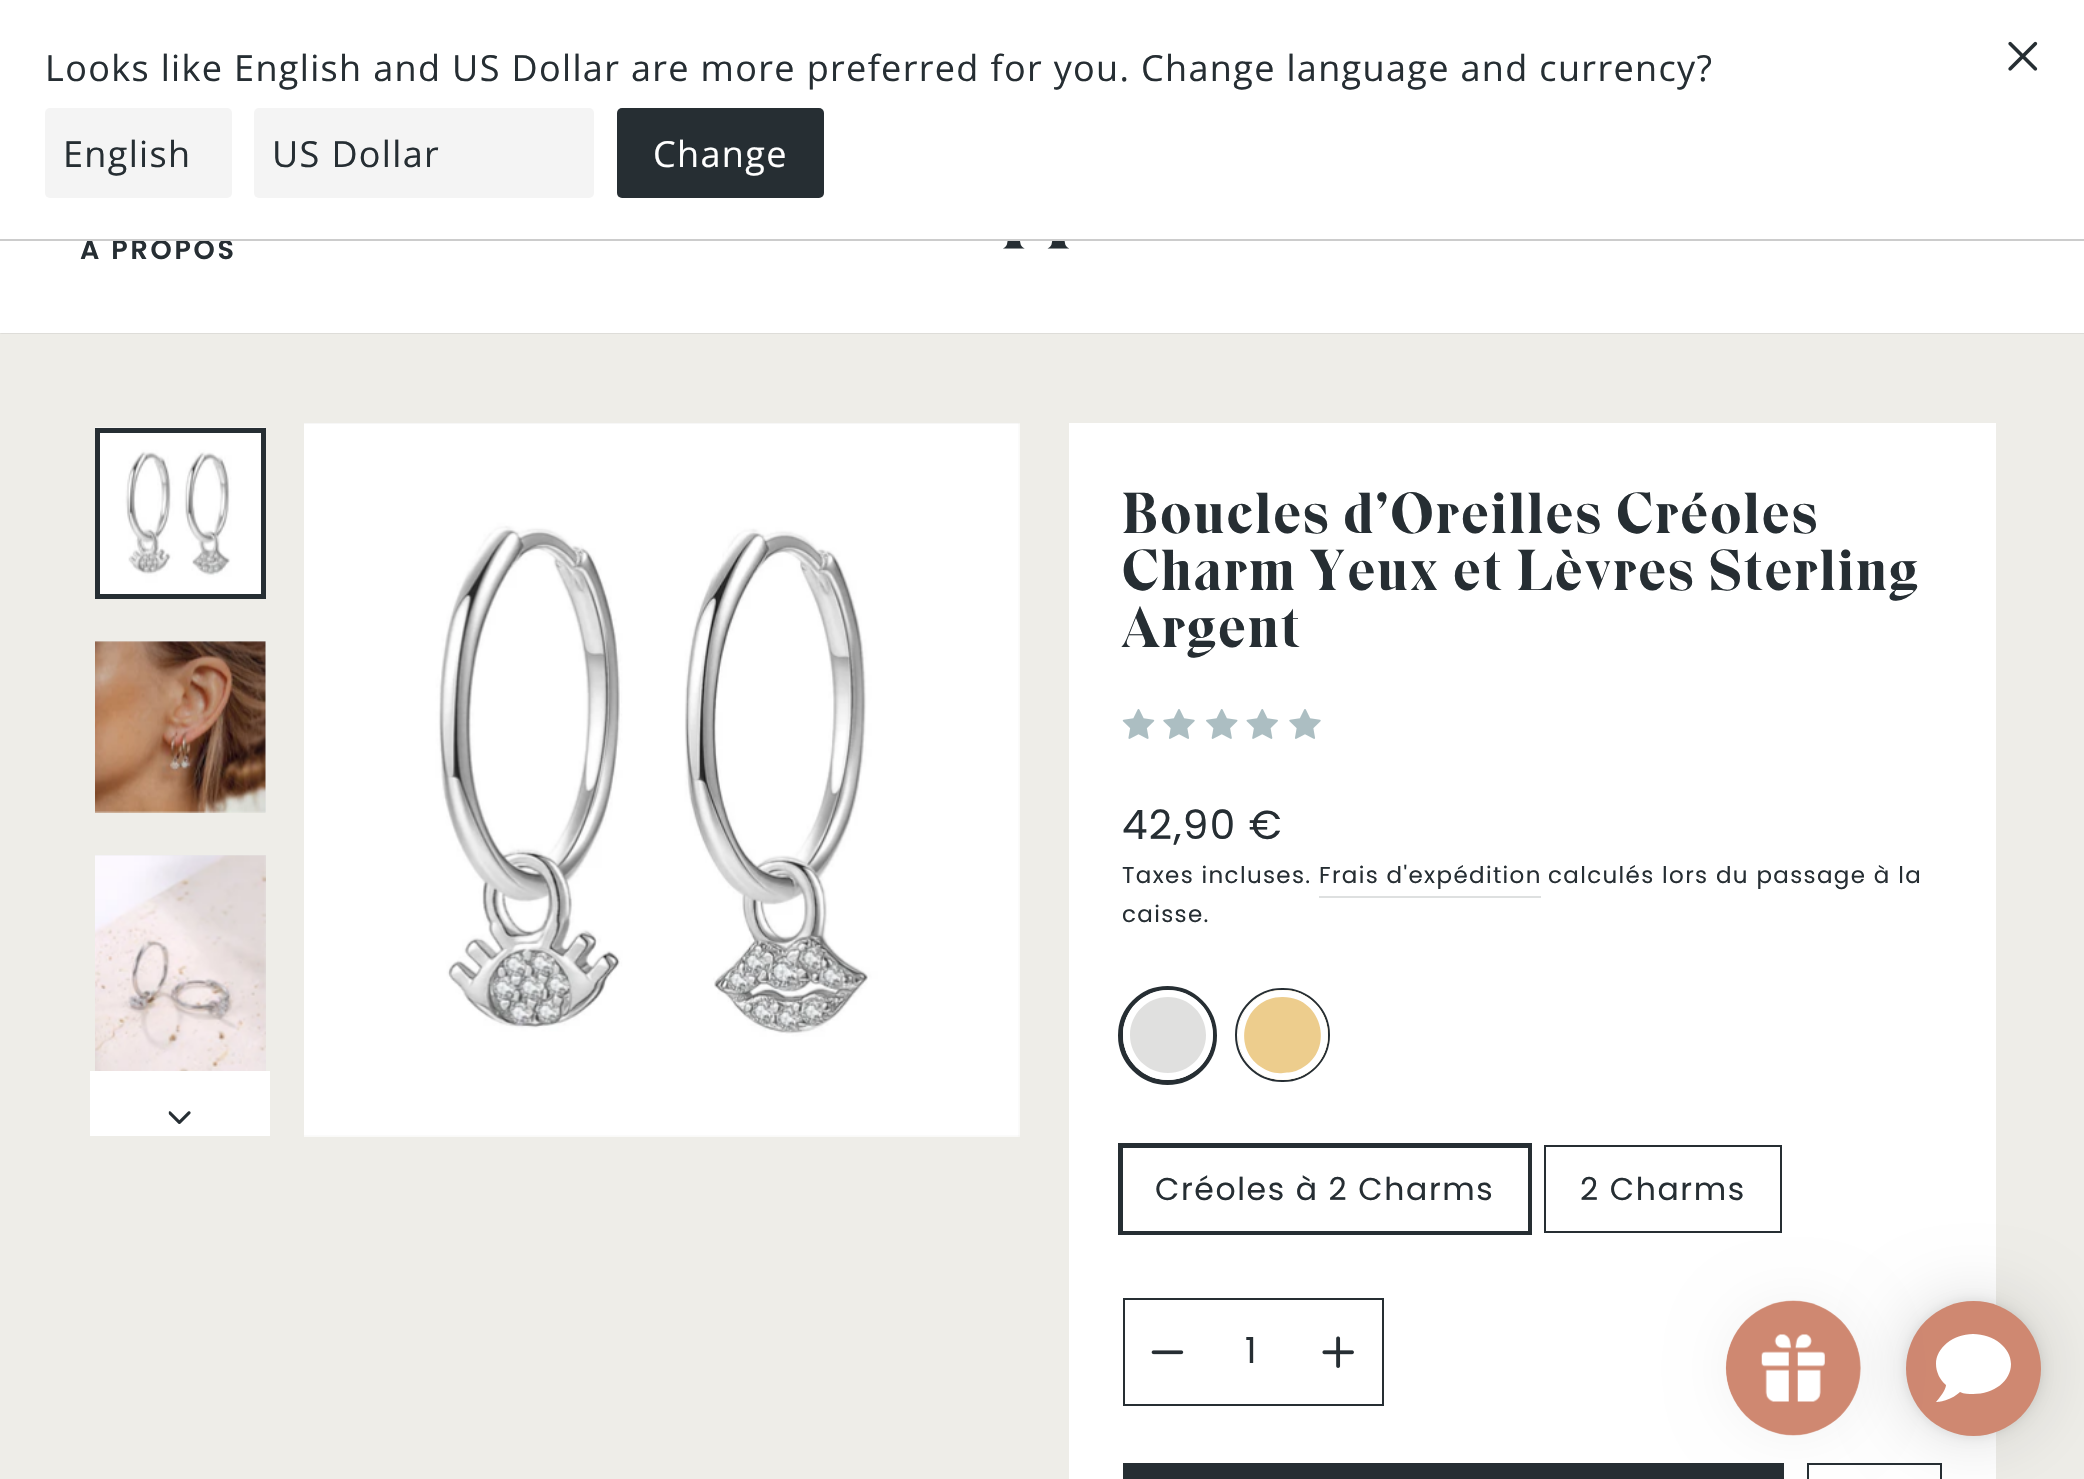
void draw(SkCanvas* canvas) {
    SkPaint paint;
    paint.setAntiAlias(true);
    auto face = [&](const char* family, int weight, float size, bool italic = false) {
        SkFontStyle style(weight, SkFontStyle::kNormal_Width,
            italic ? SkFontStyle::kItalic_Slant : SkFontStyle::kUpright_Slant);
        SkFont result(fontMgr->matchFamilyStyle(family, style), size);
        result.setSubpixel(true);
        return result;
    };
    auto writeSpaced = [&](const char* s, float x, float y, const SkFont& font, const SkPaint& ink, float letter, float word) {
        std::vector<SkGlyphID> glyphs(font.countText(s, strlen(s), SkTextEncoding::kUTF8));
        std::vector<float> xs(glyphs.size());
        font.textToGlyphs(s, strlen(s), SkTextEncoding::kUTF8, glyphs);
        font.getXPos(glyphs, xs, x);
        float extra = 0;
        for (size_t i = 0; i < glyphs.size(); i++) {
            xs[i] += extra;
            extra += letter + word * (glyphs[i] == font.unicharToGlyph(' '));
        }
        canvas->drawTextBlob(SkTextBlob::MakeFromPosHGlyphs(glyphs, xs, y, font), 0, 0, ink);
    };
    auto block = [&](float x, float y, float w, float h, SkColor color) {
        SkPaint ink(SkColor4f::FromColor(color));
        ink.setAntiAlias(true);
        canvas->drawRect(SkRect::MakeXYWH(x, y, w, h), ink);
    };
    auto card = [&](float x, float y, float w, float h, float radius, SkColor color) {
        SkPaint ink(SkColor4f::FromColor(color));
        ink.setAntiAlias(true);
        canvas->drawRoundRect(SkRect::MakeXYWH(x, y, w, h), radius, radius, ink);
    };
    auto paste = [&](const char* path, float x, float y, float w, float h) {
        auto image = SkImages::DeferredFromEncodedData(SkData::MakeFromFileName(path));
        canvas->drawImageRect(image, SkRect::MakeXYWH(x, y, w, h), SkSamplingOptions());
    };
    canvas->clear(SK_ColorWHITE);
    block(0, 333, 2084, 1146, SkColorSetRGB(238, 237, 232));
    canvas->save();
    canvas->clipRect(SkRect::MakeXYWH(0, 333, 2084, 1));
    paint.setColor(SkColorSetARGB(51, 0, 0, 0));
    paint.setMaskFilter(SkMaskFilter::MakeBlur(kNormal_SkBlurStyle, 1));
    canvas->drawRect(SkRect::MakeXYWH(0, 88, 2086, 245), paint);
    paint.setMaskFilter(nullptr);
    canvas->restore();
    auto kFont1 = face("Poppins", 600, 27);
    paint.setColor(SkColorSetRGB(38, 46, 51));
    writeSpaced("À PROPOS", 80, 259, kFont1, paint, 2.75f, 0);
    block(0, 86, 2084, 153, SK_ColorWHITE);
    block(0, 239, 2084, 2, SkColorSetRGB(204, 204, 204));
    auto kFont2 = face("Open Sans", 400, 36);
    writeSpaced("Looks like English and US Dollar are more preferred for you. Change language and currency?", 45, 81, kFont2, paint, 1.35f, 0);
    card(45, 108, 187, 90, 5, SkColorSetRGB(244, 244, 244));
    writeSpaced("English", 63, 167, kFont2, paint, 1.35f, 0);
    card(254, 108, 340, 90, 5, SkColorSetRGB(244, 244, 244));
    writeSpaced("US Dollar", 272, 167, kFont2, paint, 1.35f, 0);
    card(617, 108, 207, 90, 5, SkColorSetRGB(38, 46, 51));
    paint.setColor(SK_ColorWHITE);
    writeSpaced("Change", 653, 167, kFont2, paint, 1.35f, 0);
    paste("pic1.png", 2008, 41, 30, 30);
    paste("pic2.png", 1003, 241, 66, 8);
    paste("pic3.png", 95, 427, 171, 167);
    paint.setStyle(SkPaint::kStroke_Style);
    paint.setStrokeWidth(5);
    paint.setColor(SkColorSetRGB(38, 46, 51));
    canvas->drawRect(SkRect::MakeXYWH(97.5f, 430.5f, 166, 166), paint);
    block(95, 641, 171, 171, SkColorSetRGB(229, 229, 229));
    paste("pic4.png", 95, 641, 171, 172);
    block(95, 855, 171, 216, SkColorSetRGB(229, 229, 229));
    paste("pic5.png", 95, 855, 171, 216);
    block(90, 1071, 180, 65, SK_ColorWHITE);
    paste("pic6.png", 168, 1111, 23, 13);
    block(304, 423, 715, 713, SkColorSetRGB(229, 229, 229));
    paste("pic7.png", 304, 423, 716, 714);
    block(1069, 423, 927, 1056, SK_ColorWHITE);
    auto kFont3 = face("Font", 300, 57.4f);
    paint.setStyle(SkPaint::kFill_Style);
    writeSpaced("Boucles d’Oreilles Créoles", 1122, 533, kFont3, paint, 2.9f, 0);
    writeSpaced("Charm Yeux et Lèvres Sterling", 1122, 590, kFont3, paint, 2.9f, 0);
    writeSpaced("Argent", 1122, 647, kFont3, paint, 2.9f, 0);
    paste("pic8.png", 1122, 709, 33, 30);
    paste("pic9.png", 1163, 709, 32, 30);
    paste("pic10.png", 1206, 709, 32, 30);
    paste("pic11.png", 1246, 709, 32, 30);
    paste("pic9.png", 1289, 709, 32, 30);
    auto kFont4 = face("Poppins", 400, 40.5f);
    writeSpaced("42,90 €", 1122, 839, kFont4, paint, 1.35f, 0);
    auto kFont5 = face("Poppins", 400, 23);
    writeSpaced("Taxes incluses. Frais d'expédition", 1122, 883, kFont5, paint, 1.35f, 0);
    writeSpaced("calculés lors du passage à la", 1548, 883, kFont5, paint, 1.35f, 0);
    block(1319, 896, 222, 2, SkColorSetRGB(222, 224, 224));
    writeSpaced("caisse.", 1122, 922, kFont5, paint, 1.35f, 0);
    paint.setStyle(SkPaint::kStroke_Style);
    canvas->drawCircle(1167.5f, 1035.5f, 47, paint);
    paint.setStyle(SkPaint::kFill_Style);
    paint.setColor(SkColorSetRGB(224, 224, 223));
    canvas->drawCircle(1168, 1035, 45, paint);
    paint.setColor(SK_ColorWHITE);
    canvas->drawPath(SkPathBuilder(SkPathFillType::kEvenOdd).moveTo(1168, 990).cubicTo(1143, 990, 1123, 1010, 1123, 1035).cubicTo(1123, 1060, 1143, 1080, 1168, 1080).cubicTo(1193, 1080, 1213, 1060, 1213, 1035).cubicTo(1213, 1010, 1193, 990, 1168, 990).close().moveTo(1168, 997).cubicTo(1147, 997, 1130, 1014, 1130, 1035).cubicTo(1130, 1056, 1147, 1073, 1168, 1073).cubicTo(1189, 1073, 1206, 1056, 1206, 1035).cubicTo(1206, 1014, 1189, 997, 1168, 997).close().detach(), paint);
    paint.setStyle(SkPaint::kStroke_Style);
    paint.setStrokeWidth(2);
    paint.setColor(SkColorSetRGB(38, 46, 51));
    canvas->drawRoundRect(SkRect::MakeXYWH(1236, 989, 93, 92), 46, 46, paint);
    paint.setStyle(SkPaint::kFill_Style);
    paint.setColor(SkColorSetRGB(237, 205, 141));
    canvas->drawCircle(1283, 1035, 45, paint);
    paint.setColor(SK_ColorWHITE);
    canvas->drawPath(SkPathBuilder(SkPathFillType::kEvenOdd).moveTo(1283, 990).cubicTo(1258, 990, 1238, 1010, 1238, 1035).cubicTo(1238, 1060, 1258, 1080, 1283, 1080).cubicTo(1308, 1080, 1328, 1060, 1328, 1035).cubicTo(1328, 1010, 1308, 990, 1283, 990).close().moveTo(1282, 997).cubicTo(1245, 997, 1230, 1046, 1261, 1067).cubicTo(1267, 1071, 1275, 1074, 1283, 1073).cubicTo(1289, 1072, 1292, 1073, 1298, 1070).cubicTo(1336, 1054, 1324, 997, 1283, 997).close().detach(), paint);
    paint.setStyle(SkPaint::kStroke_Style);
    paint.setStrokeWidth(5);
    paint.setColor(SkColorSetRGB(38, 46, 51));
    canvas->drawRect(SkRect::MakeXYWH(1120.5f, 1145.5f, 409, 87), paint);
    block(1123, 1148, 405, 83, SK_ColorWHITE);
    auto kFont6 = face("Poppins", 400, 31.5f);
    paint.setStyle(SkPaint::kFill_Style);
    writeSpaced("Créoles à 2 Charms", 1155, 1200, kFont6, paint, 1.6f, 0);
    paint.setStyle(SkPaint::kStroke_Style);
    paint.setStrokeWidth(2);
    canvas->drawRect(SkRect::MakeXYWH(1545, 1146, 236, 86), paint);
    paint.setStyle(SkPaint::kFill_Style);
    writeSpaced("2 Charms", 1580, 1200, kFont6, paint, 1.6f, 0);
    paint.setStyle(SkPaint::kStroke_Style);
    canvas->drawRect(SkRect::MakeXYWH(1124, 1299, 259, 106), paint);
    paste("pic12.png", 1151, 1350, 33, 5);
    auto kFont7 = face("Poppins", 400, 36);
    paint.setStyle(SkPaint::kFill_Style);
    writeSpaced("1", 1245, 1363, kFont7, paint, 2, 0);
    paste("pic13.png", 1322, 1336, 32, 32);
    block(1123, 1463, 661, 16, SkColorSetRGB(38, 46, 51));
    paint.setStyle(SkPaint::kStroke_Style);
    canvas->drawRect(SkRect::MakeXYWH(1808, 1464, 133, 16), paint);
    paint.setStyle(SkPaint::kFill_Style);
    paint.setColor(SkColorSetARGB(38, 0, 0, 0));
    paint.setMaskFilter(SkMaskFilter::MakeBlur(kNormal_SkBlurStyle, 34));
    canvas->drawRoundRect(SkRect::MakeXYWH(1906, 1301, 135, 135), 67.5f, 67.5f, paint);
    paint.setMaskFilter(nullptr);
    paint.setColor(SkColorSetARGB(26, 0, 0, 0));
    paint.setMaskFilter(SkMaskFilter::MakeBlur(kNormal_SkBlurStyle, 5.5f));
    canvas->drawRoundRect(SkRect::MakeXYWH(1906, 1301, 135, 135), 67.5f, 67.5f, paint);
    paint.setMaskFilter(nullptr);
    paint.setColor(SkColorSetRGB(207, 136, 113));
    canvas->drawCircle(1973.5f, 1368.5f, 67.5f, paint);
    paint.setColor(SK_ColorWHITE);
    canvas->drawPath(SkPathBuilder().moveTo(1973, 1334).cubicTo(1994, 1334, 2011, 1348, 2011, 1364).cubicTo(2011, 1381, 1994, 1394, 1973, 1394).cubicTo(1969, 1394, 1964, 1394, 1960, 1392).cubicTo(1949, 1402, 1936, 1402, 1936, 1402).cubicTo(1944, 1393, 1946, 1387, 1946, 1385).cubicTo(1940, 1380, 1936, 1372, 1936, 1364).cubicTo(1936, 1348, 1953, 1334, 1973, 1334).close().detach(), paint);
    paint.setColor(SkColorSetARGB(13, 0, 0, 0));
    paint.setMaskFilter(SkMaskFilter::MakeBlur(kNormal_SkBlurStyle, 28));
    canvas->drawRoundRect(SkRect::MakeXYWH(1726, 1301, 135, 135), 67.5f, 67.5f, paint);
    paint.setMaskFilter(nullptr);
    paste("pic14.png", 1725, 1300, 136, 136);
}
